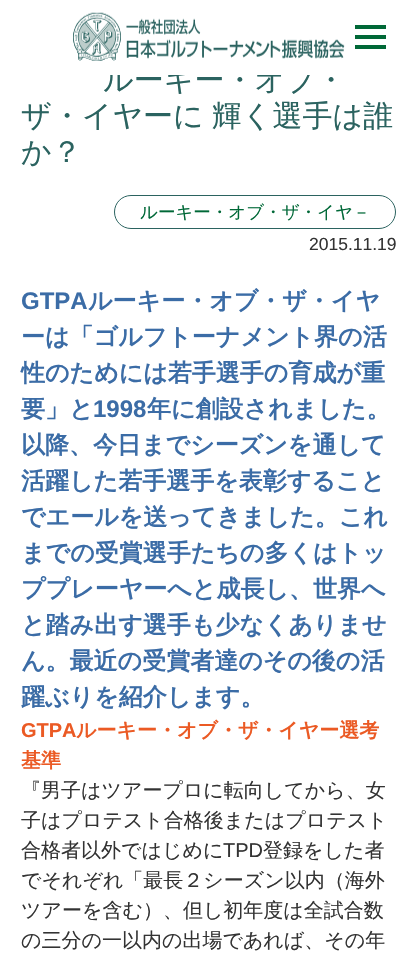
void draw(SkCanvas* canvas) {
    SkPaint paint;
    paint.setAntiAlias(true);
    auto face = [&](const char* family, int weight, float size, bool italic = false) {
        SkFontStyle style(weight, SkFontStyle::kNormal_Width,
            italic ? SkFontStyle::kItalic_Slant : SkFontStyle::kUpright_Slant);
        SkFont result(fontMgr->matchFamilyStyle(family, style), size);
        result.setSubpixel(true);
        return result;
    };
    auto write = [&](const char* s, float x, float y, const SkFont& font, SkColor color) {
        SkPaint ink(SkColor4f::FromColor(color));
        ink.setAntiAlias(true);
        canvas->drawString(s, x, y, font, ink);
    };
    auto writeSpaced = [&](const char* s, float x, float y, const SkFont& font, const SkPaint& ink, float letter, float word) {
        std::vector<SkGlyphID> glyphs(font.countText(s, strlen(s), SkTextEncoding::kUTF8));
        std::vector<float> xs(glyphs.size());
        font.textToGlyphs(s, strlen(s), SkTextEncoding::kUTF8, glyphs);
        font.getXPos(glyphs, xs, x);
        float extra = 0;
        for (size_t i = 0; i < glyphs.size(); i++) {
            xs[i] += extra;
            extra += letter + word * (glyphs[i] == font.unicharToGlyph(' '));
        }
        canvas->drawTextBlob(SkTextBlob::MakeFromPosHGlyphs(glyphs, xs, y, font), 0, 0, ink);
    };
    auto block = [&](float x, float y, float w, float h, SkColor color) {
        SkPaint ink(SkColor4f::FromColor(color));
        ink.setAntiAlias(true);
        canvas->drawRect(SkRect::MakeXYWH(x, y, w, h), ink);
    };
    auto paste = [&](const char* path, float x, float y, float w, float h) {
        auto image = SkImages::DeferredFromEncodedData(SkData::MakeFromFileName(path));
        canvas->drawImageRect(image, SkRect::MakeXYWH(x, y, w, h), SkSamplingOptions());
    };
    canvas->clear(SK_ColorWHITE);
    auto kFont1 = face("WenQuanYi Zen Hei", 500, 30);
    write("ルーキー・オブ・", 103, 90, kFont1, SkColorSetRGB(43, 99, 96));
    block(109, 65, 207, 10, SK_ColorWHITE);
    paste("pic1.png", 73, 12, 272, 49);
    block(355, 25, 31, 4, SkColorSetRGB(0, 104, 55));
    block(355, 35, 31, 4, SkColorSetRGB(0, 104, 55));
    block(355, 45, 31, 4, SkColorSetRGB(0, 104, 55));
    paint.setColor(SkColorSetRGB(43, 99, 96));
    writeSpaced("ザ・イヤーに 輝く選手は誰", 21, 126, kFont1, paint, 0, -1);
    write("か？", 21, 162, kFont1, SkColorSetRGB(43, 99, 96));
    paint.setStyle(SkPaint::kStroke_Style);
    paint.setStrokeWidth(1);
    canvas->drawRoundRect(SkRect::MakeXYWH(114.5f, 195.5f, 281, 33), 16.5f, 16.5f, paint);
    auto kFont2 = face("WenQuanYi Zen Hei", 500, 17.5f);
    write("ルーキー・オブ・ザ・イヤ－", 140, 218, kFont2, SkColorSetRGB(0, 104, 55));
    auto kFont3 = face("Liberation Sans", 400, 17.5f);
    write("2015.11.19", 309, 250, kFont3, SkColorSetRGB(51, 51, 51));
    auto kFont4 = face("Liberation Sans", 700, 24);
    write("GTPA", 21, 309, kFont4, SkColorSetRGB(59, 108, 166));
    auto kFont5 = face("WenQuanYi Zen Hei", 700, 24);
    write("ルーキー・オブ・ザ・イヤ", 88, 309, kFont5, SkColorSetRGB(59, 108, 166));
    write("ーは「ゴルフトーナメント界の活", 21, 345, kFont5, SkColorSetRGB(59, 108, 166));
    write("性のためには若手選手の育成が重", 21, 381, kFont5, SkColorSetRGB(59, 108, 166));
    write("要」と", 21, 417, kFont5, SkColorSetRGB(59, 108, 166));
    write("1998", 93, 417, kFont4, SkColorSetRGB(59, 108, 166));
    write("年に創設されました。", 147, 417, kFont5, SkColorSetRGB(59, 108, 166));
    write("以降、今日までシーズンを通して", 21, 453, kFont5, SkColorSetRGB(59, 108, 166));
    write("活躍した若手選手を表彰すること", 21, 489, kFont5, SkColorSetRGB(59, 108, 166));
    write("でエールを送ってきました。これ", 21, 525, kFont5, SkColorSetRGB(59, 108, 166));
    write("までの受賞選手たちの多くはトッ", 21, 561, kFont5, SkColorSetRGB(59, 108, 166));
    write("ププレーヤーへと成長し、世界へ", 21, 597, kFont5, SkColorSetRGB(59, 108, 166));
    write("と踏み出す選手も少なくありませ", 21, 633, kFont5, SkColorSetRGB(59, 108, 166));
    write("ん。最近の受賞者達のその後の活", 21, 669, kFont5, SkColorSetRGB(59, 108, 166));
    write("躍ぶりを紹介します。", 21, 705, kFont5, SkColorSetRGB(59, 108, 166));
    auto kFont6 = face("Liberation Sans", 700, 20);
    write("GTPA", 21, 737, kFont6, SkColorSetRGB(235, 90, 36));
    auto kFont7 = face("WenQuanYi Zen Hei", 700, 20);
    write("ルーキー・オブ・ザ・イヤー選考", 76, 737, kFont7, SkColorSetRGB(235, 90, 36));
    write("基準", 21, 767, kFont7, SkColorSetRGB(235, 90, 36));
    auto kFont8 = face("WenQuanYi Zen Hei", 500, 20);
    write("『男子はツアープロに転向してから、女", 21, 797, kFont8, SkColorSetRGB(51, 51, 51));
    write("子はプロテスト合格後またはプロテスト", 21, 827, kFont8, SkColorSetRGB(51, 51, 51));
    write("合格者以外ではじめに", 21, 857, kFont8, SkColorSetRGB(51, 51, 51));
    auto kFont9 = face("Liberation Sans", 400, 20);
    write("TPD", 223, 857, kFont9, SkColorSetRGB(51, 51, 51));
    write("登録をした者", 263, 857, kFont8, SkColorSetRGB(51, 51, 51));
    write("でそれぞれ「最長２シーズン以内（海外", 21, 887, kFont8, SkColorSetRGB(51, 51, 51));
    write("ツアーを含む）、但し初年度は全試合数", 21, 917, kFont8, SkColorSetRGB(51, 51, 51));
    write("の三分の一以内の出場であれば、その年", 21, 947, kFont8, SkColorSetRGB(51, 51, 51));
}
